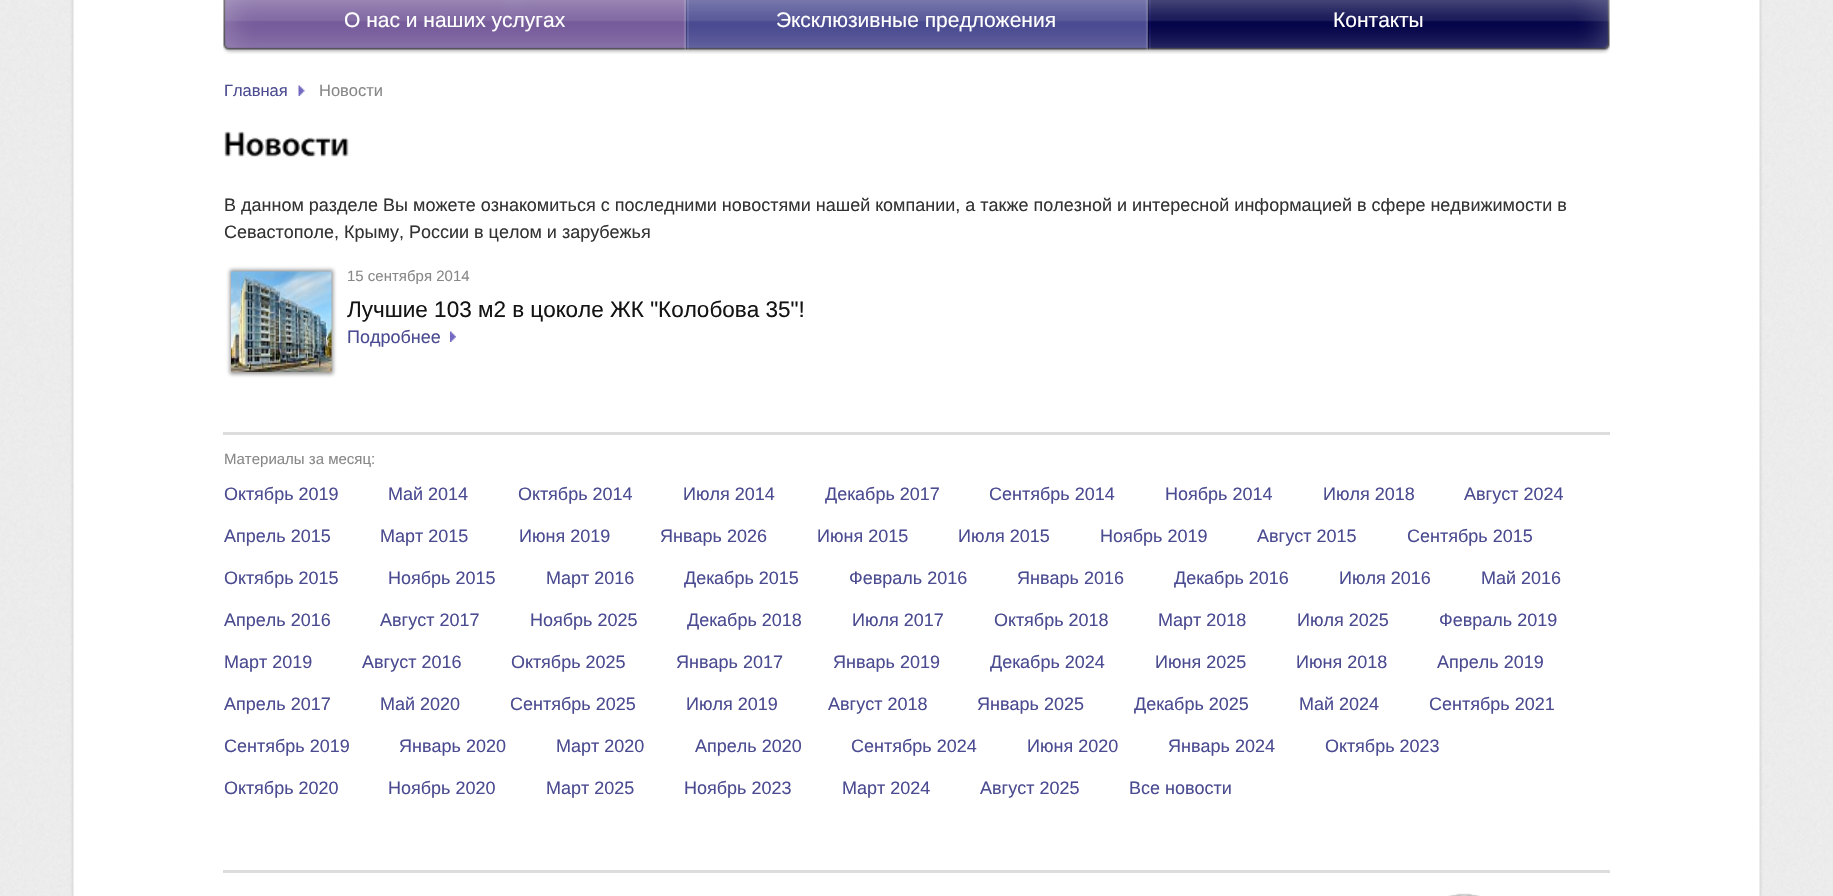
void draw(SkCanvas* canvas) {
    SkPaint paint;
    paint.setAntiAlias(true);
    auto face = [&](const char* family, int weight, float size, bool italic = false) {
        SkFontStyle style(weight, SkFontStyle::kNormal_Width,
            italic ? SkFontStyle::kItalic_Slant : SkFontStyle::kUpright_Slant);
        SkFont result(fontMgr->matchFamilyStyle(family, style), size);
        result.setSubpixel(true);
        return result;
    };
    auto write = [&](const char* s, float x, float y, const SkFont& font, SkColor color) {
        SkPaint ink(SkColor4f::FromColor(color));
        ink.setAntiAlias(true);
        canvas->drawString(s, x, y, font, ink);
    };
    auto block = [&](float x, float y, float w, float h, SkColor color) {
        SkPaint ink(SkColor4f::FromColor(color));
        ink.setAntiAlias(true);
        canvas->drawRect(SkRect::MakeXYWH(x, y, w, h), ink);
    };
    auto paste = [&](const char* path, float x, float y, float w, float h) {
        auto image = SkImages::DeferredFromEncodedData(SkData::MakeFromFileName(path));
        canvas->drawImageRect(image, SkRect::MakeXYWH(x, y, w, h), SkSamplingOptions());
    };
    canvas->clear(SK_ColorWHITE);
    paste("pic1.png", 0, 0, 1833, 896);
    paste("pic2.png", 223, 0, 463, 54);
    auto kFont1 = face("Liberation Sans", 400, 21);
    write("О нас и наших услугах", 344, 27, kFont1, SK_ColorWHITE);
    paste("pic3.png", 685, 0, 463, 54);
    write("Эксклюзивные предложения", 776, 27, kFont1, SK_ColorWHITE);
    paste("pic4.png", 1147, 0, 463, 54);
    write("Контакты", 1333, 27, kFont1, SK_ColorWHITE);
    auto kFont2 = face("Liberation Sans", 400, 16.5f);
    write("Главная", 224, 96, kFont2, SkColorSetRGB(75, 75, 145));
    paste("pic5.png", 298, 85, 7, 11);
    write("Новости", 319, 96, kFont2, SkColorSetRGB(136, 136, 136));
    paste("pic6.png", 224, 131, 125, 26);
    auto kFont3 = face("Liberation Sans", 400, 18);
    write("В данном разделе Вы можете ознакомиться c последними новостями нашей компании, а также полезной и интересной информацией в сфере недвижимости в", 224, 211, kFont3, SkColorSetRGB(51, 51, 51));
    write("Севастополе, Крыму, России в целом и зарубежья", 224, 238, kFont3, SkColorSetRGB(51, 51, 51));
    paint.setColor(SkColorSetARGB(120, 16, 16, 17));
    paint.setMaskFilter(SkMaskFilter::MakeBlur(kNormal_SkBlurStyle, 2));
    canvas->drawRect(SkRect::MakeXYWH(230, 270, 103, 104), paint);
    paint.setMaskFilter(nullptr);
    paste("pic7.png", 231, 271, 101, 101);
    auto kFont4 = face("Liberation Sans", 400, 15);
    write("15 сентября 2014", 347, 281, kFont4, SkColorSetRGB(136, 136, 136));
    auto kFont5 = face("Liberation Sans", 400, 22.5f);
    write("Лучшие 103 м2 в цоколе ЖК \"Колобова 35\"!", 347, 317, kFont5, SkColorSetRGB(20, 20, 20));
    paste("pic8.png", 450, 331, 6, 11);
    write("Подробнее", 347, 343, kFont3, SkColorSetRGB(75, 75, 145));
    block(223, 432, 1387, 3, SkColorSetRGB(221, 221, 221));
    write("Материалы за месяц:", 224, 464, kFont4, SkColorSetRGB(136, 136, 136));
    write("Октябрь 2019", 224, 500, kFont3, SkColorSetRGB(75, 75, 145));
    write("Май 2014", 388, 500, kFont3, SkColorSetRGB(75, 75, 145));
    write("Октябрь 2014", 518, 500, kFont3, SkColorSetRGB(75, 75, 145));
    write("Июля 2014", 683, 500, kFont3, SkColorSetRGB(75, 75, 145));
    write("Декабрь 2017", 825, 500, kFont3, SkColorSetRGB(75, 75, 145));
    write("Сентябрь 2014", 989, 500, kFont3, SkColorSetRGB(75, 75, 145));
    write("Ноябрь 2014", 1165, 500, kFont3, SkColorSetRGB(75, 75, 145));
    write("Июля 2018", 1323, 500, kFont3, SkColorSetRGB(75, 75, 145));
    write("Август 2024", 1464, 500, kFont3, SkColorSetRGB(75, 75, 145));
    write("Апрель 2015", 224, 542, kFont3, SkColorSetRGB(75, 75, 145));
    write("Март 2015", 380, 542, kFont3, SkColorSetRGB(75, 75, 145));
    write("Июня 2019", 519, 542, kFont3, SkColorSetRGB(75, 75, 145));
    write("Январь 2026", 660, 542, kFont3, SkColorSetRGB(75, 75, 145));
    write("Июня 2015", 817, 542, kFont3, SkColorSetRGB(75, 75, 145));
    write("Июля 2015", 958, 542, kFont3, SkColorSetRGB(75, 75, 145));
    write("Ноябрь 2019", 1100, 542, kFont3, SkColorSetRGB(75, 75, 145));
    write("Август 2015", 1257, 542, kFont3, SkColorSetRGB(75, 75, 145));
    write("Сентябрь 2015", 1407, 542, kFont3, SkColorSetRGB(75, 75, 145));
    write("Октябрь 2015", 224, 584, kFont3, SkColorSetRGB(75, 75, 145));
    write("Ноябрь 2015", 388, 584, kFont3, SkColorSetRGB(75, 75, 145));
    write("Март 2016", 546, 584, kFont3, SkColorSetRGB(75, 75, 145));
    write("Декабрь 2015", 684, 584, kFont3, SkColorSetRGB(75, 75, 145));
    write("Февраль 2016", 849, 584, kFont3, SkColorSetRGB(75, 75, 145));
    write("Январь 2016", 1017, 584, kFont3, SkColorSetRGB(75, 75, 145));
    write("Декабрь 2016", 1174, 584, kFont3, SkColorSetRGB(75, 75, 145));
    write("Июля 2016", 1339, 584, kFont3, SkColorSetRGB(75, 75, 145));
    write("Май 2016", 1481, 584, kFont3, SkColorSetRGB(75, 75, 145));
    write("Апрель 2016", 224, 626, kFont3, SkColorSetRGB(75, 75, 145));
    write("Август 2017", 380, 626, kFont3, SkColorSetRGB(75, 75, 145));
    write("Ноябрь 2025", 530, 626, kFont3, SkColorSetRGB(75, 75, 145));
    write("Декабрь 2018", 687, 626, kFont3, SkColorSetRGB(75, 75, 145));
    write("Июля 2017", 852, 626, kFont3, SkColorSetRGB(75, 75, 145));
    write("Октябрь 2018", 994, 626, kFont3, SkColorSetRGB(75, 75, 145));
    write("Март 2018", 1158, 626, kFont3, SkColorSetRGB(75, 75, 145));
    write("Июля 2025", 1297, 626, kFont3, SkColorSetRGB(75, 75, 145));
    write("Февраль 2019", 1439, 626, kFont3, SkColorSetRGB(75, 75, 145));
    write("Март 2019", 224, 668, kFont3, SkColorSetRGB(75, 75, 145));
    write("Август 2016", 362, 668, kFont3, SkColorSetRGB(75, 75, 145));
    write("Октябрь 2025", 511, 668, kFont3, SkColorSetRGB(75, 75, 145));
    write("Январь 2017", 676, 668, kFont3, SkColorSetRGB(75, 75, 145));
    write("Январь 2019", 833, 668, kFont3, SkColorSetRGB(75, 75, 145));
    write("Декабрь 2024", 990, 668, kFont3, SkColorSetRGB(75, 75, 145));
    write("Июня 2025", 1155, 668, kFont3, SkColorSetRGB(75, 75, 145));
    write("Июня 2018", 1296, 668, kFont3, SkColorSetRGB(75, 75, 145));
    write("Апрель 2019", 1437, 668, kFont3, SkColorSetRGB(75, 75, 145));
    write("Апрель 2017", 224, 710, kFont3, SkColorSetRGB(75, 75, 145));
    write("Май 2020", 380, 710, kFont3, SkColorSetRGB(75, 75, 145));
    write("Сентябрь 2025", 510, 710, kFont3, SkColorSetRGB(75, 75, 145));
    write("Июля 2019", 686, 710, kFont3, SkColorSetRGB(75, 75, 145));
    write("Август 2018", 828, 710, kFont3, SkColorSetRGB(75, 75, 145));
    write("Январь 2025", 977, 710, kFont3, SkColorSetRGB(75, 75, 145));
    write("Декабрь 2025", 1134, 710, kFont3, SkColorSetRGB(75, 75, 145));
    write("Май 2024", 1299, 710, kFont3, SkColorSetRGB(75, 75, 145));
    write("Сентябрь 2021", 1429, 710, kFont3, SkColorSetRGB(75, 75, 145));
    write("Сентябрь 2019", 224, 752, kFont3, SkColorSetRGB(75, 75, 145));
    write("Январь 2020", 399, 752, kFont3, SkColorSetRGB(75, 75, 145));
    write("Март 2020", 556, 752, kFont3, SkColorSetRGB(75, 75, 145));
    write("Апрель 2020", 695, 752, kFont3, SkColorSetRGB(75, 75, 145));
    write("Сентябрь 2024", 851, 752, kFont3, SkColorSetRGB(75, 75, 145));
    write("Июня 2020", 1027, 752, kFont3, SkColorSetRGB(75, 75, 145));
    write("Январь 2024", 1168, 752, kFont3, SkColorSetRGB(75, 75, 145));
    write("Октябрь 2023", 1325, 752, kFont3, SkColorSetRGB(75, 75, 145));
    write("Октябрь 2020", 224, 794, kFont3, SkColorSetRGB(75, 75, 145));
    write("Ноябрь 2020", 388, 794, kFont3, SkColorSetRGB(75, 75, 145));
    write("Март 2025", 546, 794, kFont3, SkColorSetRGB(75, 75, 145));
    write("Ноябрь 2023", 684, 794, kFont3, SkColorSetRGB(75, 75, 145));
    write("Март 2024", 842, 794, kFont3, SkColorSetRGB(75, 75, 145));
    write("Август 2025", 980, 794, kFont3, SkColorSetRGB(75, 75, 145));
    write("Все новости", 1129, 794, kFont3, SkColorSetRGB(75, 75, 145));
    block(223, 870, 1387, 3, SkColorSetRGB(221, 221, 221));
    paste("pic9.png", 1448, 893, 32, 3);
}
